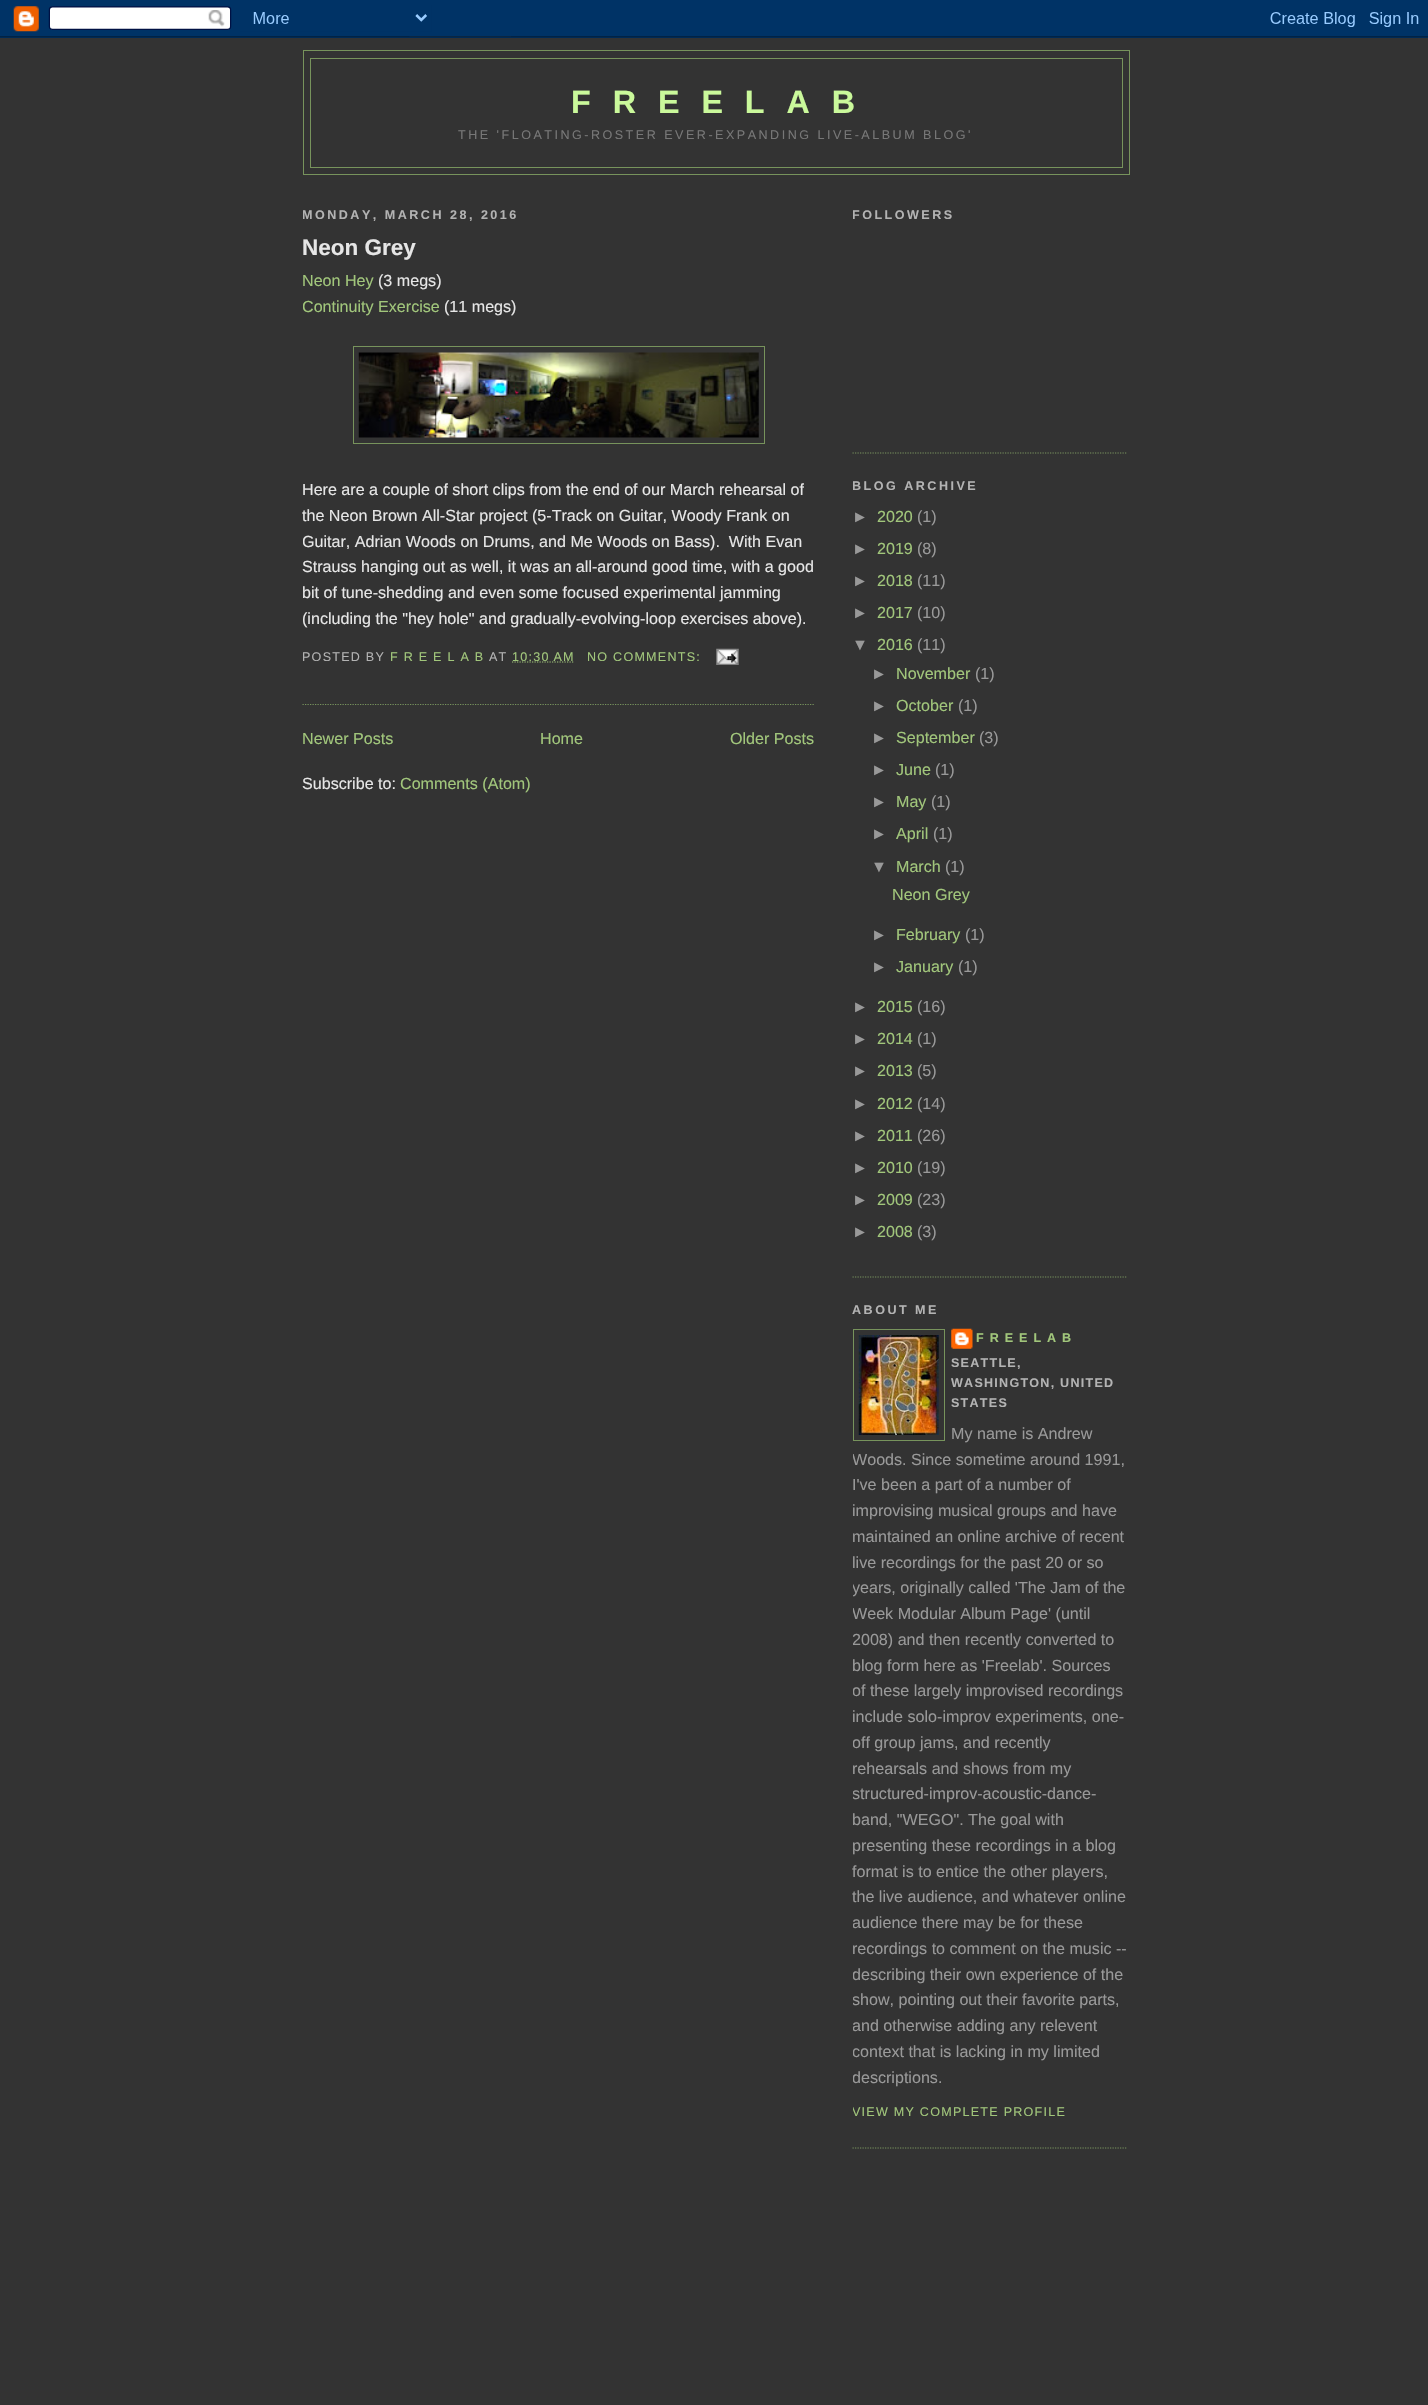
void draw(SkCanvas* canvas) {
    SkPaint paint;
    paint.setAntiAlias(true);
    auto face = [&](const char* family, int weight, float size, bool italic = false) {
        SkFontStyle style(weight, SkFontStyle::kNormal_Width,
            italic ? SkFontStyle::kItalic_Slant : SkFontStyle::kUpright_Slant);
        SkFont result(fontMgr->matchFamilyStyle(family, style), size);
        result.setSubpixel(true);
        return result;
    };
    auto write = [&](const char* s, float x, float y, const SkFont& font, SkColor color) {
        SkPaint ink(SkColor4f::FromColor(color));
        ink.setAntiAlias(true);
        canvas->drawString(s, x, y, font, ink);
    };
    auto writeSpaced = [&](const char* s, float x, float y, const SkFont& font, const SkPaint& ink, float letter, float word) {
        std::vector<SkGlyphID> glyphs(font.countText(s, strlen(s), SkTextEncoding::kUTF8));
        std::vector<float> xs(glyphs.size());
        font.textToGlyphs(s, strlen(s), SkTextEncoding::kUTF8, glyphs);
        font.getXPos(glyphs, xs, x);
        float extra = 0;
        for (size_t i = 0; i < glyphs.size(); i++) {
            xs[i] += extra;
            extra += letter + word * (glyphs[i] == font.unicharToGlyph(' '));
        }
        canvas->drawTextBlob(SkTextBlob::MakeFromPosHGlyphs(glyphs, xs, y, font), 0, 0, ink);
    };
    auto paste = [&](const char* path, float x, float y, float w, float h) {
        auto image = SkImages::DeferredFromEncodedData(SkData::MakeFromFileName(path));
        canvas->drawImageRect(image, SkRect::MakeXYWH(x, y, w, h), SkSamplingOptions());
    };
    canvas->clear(SkColorSetRGB(51, 51, 51));
    paste("pic1.png", 0, 0, 1428, 38);
    paint.setStyle(SkPaint::kStroke_Style);
    paint.setStrokeWidth(1);
    paint.setColor(SkColorSetRGB(119, 147, 92));
    canvas->drawRect(SkRect::MakeXYWH(303.5f, 50.5f, 826, 124), paint);
    canvas->drawRect(SkRect::MakeXYWH(310.5f, 58.5f, 812, 109), paint);
    auto kFont1 = face("Liberation Sans", 700, 32.25f);
    paint.setStyle(SkPaint::kFill_Style);
    paint.setColor(SkColorSetRGB(202, 249, 155));
    writeSpaced("F R E E L A B", 571, 113, kFont1, paint, 6.5f, 0);
    auto kFont2 = face("Liberation Sans", 400, 12.55f);
    paint.setColor(SkColorSetRGB(119, 119, 119));
    writeSpaced("THE 'FLOATING-ROSTER EVER-EXPANDING LIVE-ALBUM BLOG'", 458, 139, kFont2, paint, 2.5f, 0);
    canvas->save();
    canvas->clipRect(SkRect::MakeXYWH(303, 188, 512, 665));
    auto kFont3 = face("Liberation Sans", 700, 12.55f);
    paint.setColor(SkColorSetRGB(179, 179, 179));
    writeSpaced("MONDAY, MARCH 28, 2016", 302, 219, kFont3, paint, 2.5f, 0);
    canvas->restore();
    paint.setStyle(SkPaint::kStroke_Style);
    paint.setStrokeWidth(1.2f);
    paint.setColor(SkColorSetRGB(119, 147, 92));
    paint.setPathEffect(SkDashPathEffect::Make({{1.25f, 1.25f}}, 0));
    canvas->drawPath(SkPathBuilder().moveTo(302.5f, 704.5f).lineTo(815, 704.5f).detach(), paint);
    paint.setPathEffect(nullptr);
    auto kFont4 = face("Liberation Sans", 700, 22.5f);
    write("Neon Grey", 302, 255, kFont4, SkColorSetRGB(230, 230, 230));
    auto kFont5 = face("Liberation Sans", 400, 16.1f);
    write("Neon Hey", 302, 286, kFont5, SkColorSetRGB(161, 198, 123));
    write("(3 megs)", 378, 286, kFont5, SkColorSetRGB(230, 230, 230));
    canvas->save();
    canvas->clipRect(SkRect::MakeXYWH(303, 188, 512, 665));
    write("Continuity Exercise", 302, 312, kFont5, SkColorSetRGB(161, 198, 123));
    canvas->restore();
    write("(11 megs)", 444, 312, kFont5, SkColorSetRGB(230, 230, 230));
    paint.setStrokeWidth(1);
    canvas->drawRect(SkRect::MakeXYWH(353.5f, 346.5f, 411, 97), paint);
    paste("pic2.png", 358, 352, 401, 86);
    write("Here are a couple of short clips from the end of our March rehearsal of", 302, 495, kFont5, SkColorSetRGB(230, 230, 230));
    write("the Neon Brown All-Star project (5-Track on Guitar, Woody Frank on", 302, 521, kFont5, SkColorSetRGB(230, 230, 230));
    canvas->save();
    canvas->clipRect(SkRect::MakeXYWH(303, 188, 512, 665));
    write("Guitar, Adrian Woods on Drums, and Me Woods on Bass).  With Evan", 302, 547, kFont5, SkColorSetRGB(230, 230, 230));
    canvas->restore();
    write("Strauss hanging out as well, it was an all-around good time, with a good", 302, 572, kFont5, SkColorSetRGB(230, 230, 230));
    write("bit of tune-shedding and even some focused experimental jamming", 302, 598, kFont5, SkColorSetRGB(230, 230, 230));
    write("(including the \"hey hole\" and gradually-evolving-loop exercises above).", 302, 624, kFont5, SkColorSetRGB(230, 230, 230));
    canvas->save();
    canvas->clipRect(SkRect::MakeXYWH(303, 188, 512, 665));
    paint.setStyle(SkPaint::kFill_Style);
    paint.setColor(SkColorSetRGB(179, 179, 179));
    writeSpaced("POSTED BY", 302, 661, kFont2, paint, 1.25f, 0);
    canvas->restore();
    paint.setColor(SkColorSetRGB(161, 198, 123));
    writeSpaced("F R E E L A B", 390, 661, kFont2, paint, 1.25f, 0);
    paint.setColor(SkColorSetRGB(179, 179, 179));
    writeSpaced("AT", 489, 661, kFont2, paint, 1.25f, 0);
    paint.setStyle(SkPaint::kStroke_Style);
    paint.setStrokeWidth(1.2f);
    paint.setColor(SkColorSetRGB(161, 198, 123));
    paint.setPathEffect(SkDashPathEffect::Make({{1.25f, 1.25f}}, 0));
    canvas->drawPath(SkPathBuilder().moveTo(512, 662).lineTo(574.5f, 662).detach(), paint);
    paint.setPathEffect(nullptr);
    paint.setStyle(SkPaint::kFill_Style);
    writeSpaced("10:30 AM", 512, 661, kFont2, paint, 1.25f, 0);
    writeSpaced("NO COMMENTS:", 587, 661, kFont2, paint, 1.25f, 0);
    paste("pic3.png", 716, 648, 23, 17);
    write("Newer Posts", 302, 744, kFont5, SkColorSetRGB(161, 198, 123));
    write("Home", 540, 744, kFont5, SkColorSetRGB(161, 198, 123));
    write("Older Posts", 730, 744, kFont5, SkColorSetRGB(161, 198, 123));
    write("Subscribe to:", 302, 789, kFont5, SkColorSetRGB(230, 230, 230));
    write("Comments (Atom)", 400, 789, kFont5, SkColorSetRGB(161, 198, 123));
    paint.setStyle(SkPaint::kStroke_Style);
    paint.setColor(SkColorSetRGB(119, 147, 92));
    paint.setPathEffect(SkDashPathEffect::Make({{1.25f, 1.25f}}, 0));
    canvas->drawPath(SkPathBuilder().moveTo(852.5f, 453).lineTo(1127.5f, 453).detach(), paint);
    paint.setPathEffect(nullptr);
    canvas->save();
    canvas->clipRect(SkRect::MakeXYWH(853, 188, 275, 1985));
    paint.setStyle(SkPaint::kFill_Style);
    paint.setColor(SkColorSetRGB(179, 179, 179));
    writeSpaced("FOLLOWERS", 852, 219, kFont3, paint, 2.5f, 0);
    canvas->restore();
    paint.setStyle(SkPaint::kStroke_Style);
    paint.setColor(SkColorSetRGB(119, 147, 92));
    paint.setPathEffect(SkDashPathEffect::Make({{1.25f, 1.25f}}, 0));
    canvas->drawPath(SkPathBuilder().moveTo(852.5f, 1277).lineTo(1127.5f, 1277).detach(), paint);
    paint.setPathEffect(nullptr);
    canvas->save();
    canvas->clipRect(SkRect::MakeXYWH(853, 188, 275, 1985));
    paint.setStyle(SkPaint::kFill_Style);
    paint.setColor(SkColorSetRGB(179, 179, 179));
    writeSpaced("BLOG ARCHIVE", 852, 490, kFont3, paint, 2.5f, 0);
    canvas->restore();
    write("►", 852, 522, kFont5, SkColorSetRGB(153, 153, 153));
    write("2020", 877, 522, kFont5, SkColorSetRGB(161, 198, 123));
    write("(1)", 917, 522, kFont5, SkColorSetRGB(153, 153, 153));
    write("►", 852, 554, kFont5, SkColorSetRGB(153, 153, 153));
    write("2019", 877, 554, kFont5, SkColorSetRGB(161, 198, 123));
    write("(8)", 917, 554, kFont5, SkColorSetRGB(153, 153, 153));
    write("►", 852, 586, kFont5, SkColorSetRGB(153, 153, 153));
    write("2018", 877, 586, kFont5, SkColorSetRGB(161, 198, 123));
    write("(11)", 917, 586, kFont5, SkColorSetRGB(153, 153, 153));
    write("►", 852, 618, kFont5, SkColorSetRGB(153, 153, 153));
    write("2017", 877, 618, kFont5, SkColorSetRGB(161, 198, 123));
    write("(10)", 917, 618, kFont5, SkColorSetRGB(153, 153, 153));
    write("▼", 852, 650, kFont5, SkColorSetRGB(153, 153, 153));
    write("2016", 877, 650, kFont5, SkColorSetRGB(161, 198, 123));
    write("(11)", 917, 650, kFont5, SkColorSetRGB(153, 153, 153));
    write("►", 871, 679, kFont5, SkColorSetRGB(153, 153, 153));
    write("November", 896, 679, kFont5, SkColorSetRGB(161, 198, 123));
    write("(1)", 975, 679, kFont5, SkColorSetRGB(153, 153, 153));
    write("►", 871, 711, kFont5, SkColorSetRGB(153, 153, 153));
    write("October", 896, 711, kFont5, SkColorSetRGB(161, 198, 123));
    write("(1)", 958, 711, kFont5, SkColorSetRGB(153, 153, 153));
    write("►", 871, 743, kFont5, SkColorSetRGB(153, 153, 153));
    write("September", 896, 743, kFont5, SkColorSetRGB(161, 198, 123));
    write("(3)", 979, 743, kFont5, SkColorSetRGB(153, 153, 153));
    write("►", 871, 775, kFont5, SkColorSetRGB(153, 153, 153));
    write("June", 896, 775, kFont5, SkColorSetRGB(161, 198, 123));
    write("(1)", 935, 775, kFont5, SkColorSetRGB(153, 153, 153));
    write("►", 871, 807, kFont5, SkColorSetRGB(153, 153, 153));
    write("May", 896, 807, kFont5, SkColorSetRGB(161, 198, 123));
    write("(1)", 931, 807, kFont5, SkColorSetRGB(153, 153, 153));
    write("►", 871, 839, kFont5, SkColorSetRGB(153, 153, 153));
    write("April", 896, 839, kFont5, SkColorSetRGB(161, 198, 123));
    write("(1)", 933, 839, kFont5, SkColorSetRGB(153, 153, 153));
    write("▼", 871, 872, kFont5, SkColorSetRGB(153, 153, 153));
    write("March", 896, 872, kFont5, SkColorSetRGB(161, 198, 123));
    write("(1)", 945, 872, kFont5, SkColorSetRGB(153, 153, 153));
    write("Neon Grey", 892, 900, kFont5, SkColorSetRGB(161, 198, 123));
    write("►", 871, 940, kFont5, SkColorSetRGB(153, 153, 153));
    write("February", 896, 940, kFont5, SkColorSetRGB(161, 198, 123));
    write("(1)", 965, 940, kFont5, SkColorSetRGB(153, 153, 153));
    write("►", 871, 972, kFont5, SkColorSetRGB(153, 153, 153));
    write("January", 896, 972, kFont5, SkColorSetRGB(161, 198, 123));
    write("(1)", 958, 972, kFont5, SkColorSetRGB(153, 153, 153));
    write("►", 852, 1012, kFont5, SkColorSetRGB(153, 153, 153));
    write("2015", 877, 1012, kFont5, SkColorSetRGB(161, 198, 123));
    write("(16)", 917, 1012, kFont5, SkColorSetRGB(153, 153, 153));
    write("►", 852, 1044, kFont5, SkColorSetRGB(153, 153, 153));
    write("2014", 877, 1044, kFont5, SkColorSetRGB(161, 198, 123));
    write("(1)", 917, 1044, kFont5, SkColorSetRGB(153, 153, 153));
    write("►", 852, 1076, kFont5, SkColorSetRGB(153, 153, 153));
    write("2013", 877, 1076, kFont5, SkColorSetRGB(161, 198, 123));
    write("(5)", 917, 1076, kFont5, SkColorSetRGB(153, 153, 153));
    write("►", 852, 1109, kFont5, SkColorSetRGB(153, 153, 153));
    write("2012", 877, 1109, kFont5, SkColorSetRGB(161, 198, 123));
    write("(14)", 917, 1109, kFont5, SkColorSetRGB(153, 153, 153));
    write("►", 852, 1141, kFont5, SkColorSetRGB(153, 153, 153));
    write("2011", 877, 1141, kFont5, SkColorSetRGB(161, 198, 123));
    write("(26)", 917, 1141, kFont5, SkColorSetRGB(153, 153, 153));
    write("►", 852, 1173, kFont5, SkColorSetRGB(153, 153, 153));
    write("2010", 877, 1173, kFont5, SkColorSetRGB(161, 198, 123));
    write("(19)", 917, 1173, kFont5, SkColorSetRGB(153, 153, 153));
    write("►", 852, 1205, kFont5, SkColorSetRGB(153, 153, 153));
    write("2009", 877, 1205, kFont5, SkColorSetRGB(161, 198, 123));
    write("(23)", 917, 1205, kFont5, SkColorSetRGB(153, 153, 153));
    write("►", 852, 1237, kFont5, SkColorSetRGB(153, 153, 153));
    write("2008", 877, 1237, kFont5, SkColorSetRGB(161, 198, 123));
    write("(3)", 917, 1237, kFont5, SkColorSetRGB(153, 153, 153));
    paint.setStyle(SkPaint::kStroke_Style);
    paint.setColor(SkColorSetRGB(119, 147, 92));
    paint.setPathEffect(SkDashPathEffect::Make({{1.25f, 1.25f}}, 0));
    canvas->drawPath(SkPathBuilder().moveTo(852.5f, 2148).lineTo(1127.5f, 2148).detach(), paint);
    paint.setPathEffect(nullptr);
    paint.setStyle(SkPaint::kFill_Style);
    paint.setColor(SkColorSetRGB(179, 179, 179));
    writeSpaced("ABOUT ME", 852, 1314, kFont3, paint, 2.5f, 0);
    paint.setStyle(SkPaint::kStroke_Style);
    paint.setStrokeWidth(1);
    paint.setColor(SkColorSetRGB(119, 147, 92));
    canvas->drawRect(SkRect::MakeXYWH(853.5f, 1329.5f, 91, 111), paint);
    paste("pic4.png", 858, 1335, 81, 100);
    paste("pic5.png", 951, 1328, 22, 21);
    paint.setStyle(SkPaint::kFill_Style);
    paint.setColor(SkColorSetRGB(161, 198, 123));
    writeSpaced("F R E E L A B", 976, 1342, kFont3, paint, 1.25f, 0);
    paint.setColor(SkColorSetRGB(179, 179, 179));
    writeSpaced("SEATTLE,", 951, 1367, kFont3, paint, 1.25f, 0);
    writeSpaced("WASHINGTON, UNITED", 951, 1387, kFont3, paint, 1.25f, 0);
    writeSpaced("STATES", 951, 1407, kFont3, paint, 1.25f, 0);
    write("My name is Andrew", 951, 1439, kFont5, SkColorSetRGB(153, 153, 153));
    canvas->save();
    canvas->clipRect(SkRect::MakeXYWH(853, 188, 275, 1985));
    write("Woods.", 852, 1465, kFont5, SkColorSetRGB(153, 153, 153));
    canvas->restore();
    write("Since sometime around 1991,", 911, 1465, kFont5, SkColorSetRGB(153, 153, 153));
    write("I've been a part of a number of", 852, 1490, kFont5, SkColorSetRGB(153, 153, 153));
    write("improvising musical groups and have", 852, 1516, kFont5, SkColorSetRGB(153, 153, 153));
    write("maintained an online archive of recent", 852, 1542, kFont5, SkColorSetRGB(153, 153, 153));
    write("live recordings for the past 20 or so", 852, 1568, kFont5, SkColorSetRGB(153, 153, 153));
    canvas->save();
    canvas->clipRect(SkRect::MakeXYWH(853, 188, 275, 1985));
    write("years, originally called 'The Jam of the", 852, 1593, kFont5, SkColorSetRGB(153, 153, 153));
    write("Week Modular Album Page' (until", 852, 1619, kFont5, SkColorSetRGB(153, 153, 153));
    write("2008) and then recently converted to", 852, 1645, kFont5, SkColorSetRGB(153, 153, 153));
    canvas->restore();
    write("blog form here as 'Freelab'. Sources", 852, 1671, kFont5, SkColorSetRGB(153, 153, 153));
    canvas->save();
    canvas->clipRect(SkRect::MakeXYWH(853, 188, 275, 1985));
    write("of these largely improvised recordings", 852, 1696, kFont5, SkColorSetRGB(153, 153, 153));
    canvas->restore();
    write("include solo-improv experiments, one-", 852, 1722, kFont5, SkColorSetRGB(153, 153, 153));
    canvas->save();
    canvas->clipRect(SkRect::MakeXYWH(853, 188, 275, 1985));
    write("off group jams, and recently", 852, 1748, kFont5, SkColorSetRGB(153, 153, 153));
    canvas->restore();
    write("rehearsals and shows from my", 852, 1774, kFont5, SkColorSetRGB(153, 153, 153));
    canvas->save();
    canvas->clipRect(SkRect::MakeXYWH(853, 188, 275, 1985));
    write("structured-improv-acoustic-dance-", 852, 1799, kFont5, SkColorSetRGB(153, 153, 153));
    canvas->restore();
    write("band, \"WEGO\". The goal with", 852, 1825, kFont5, SkColorSetRGB(153, 153, 153));
    write("presenting these recordings in a blog", 852, 1851, kFont5, SkColorSetRGB(153, 153, 153));
    write("format is to entice the other players,", 852, 1877, kFont5, SkColorSetRGB(153, 153, 153));
    write("the live audience, and whatever online", 852, 1902, kFont5, SkColorSetRGB(153, 153, 153));
    canvas->save();
    canvas->clipRect(SkRect::MakeXYWH(853, 188, 275, 1985));
    write("audience there may be for these", 852, 1928, kFont5, SkColorSetRGB(153, 153, 153));
    canvas->restore();
    write("recordings to comment on the music --", 852, 1954, kFont5, SkColorSetRGB(153, 153, 153));
    canvas->save();
    canvas->clipRect(SkRect::MakeXYWH(853, 188, 275, 1985));
    write("describing their own experience of the", 852, 1980, kFont5, SkColorSetRGB(153, 153, 153));
    write("show, pointing out their favorite parts,", 852, 2005, kFont5, SkColorSetRGB(153, 153, 153));
    write("and otherwise adding any relevent", 852, 2031, kFont5, SkColorSetRGB(153, 153, 153));
    write("context that is lacking in my limited", 852, 2057, kFont5, SkColorSetRGB(153, 153, 153));
    write("descriptions.", 852, 2083, kFont5, SkColorSetRGB(153, 153, 153));
    paint.setColor(SkColorSetRGB(161, 198, 123));
    writeSpaced("VIEW MY COMPLETE PROFILE", 852, 2116, kFont2, paint, 1.25f, 0);
    canvas->restore();
}
